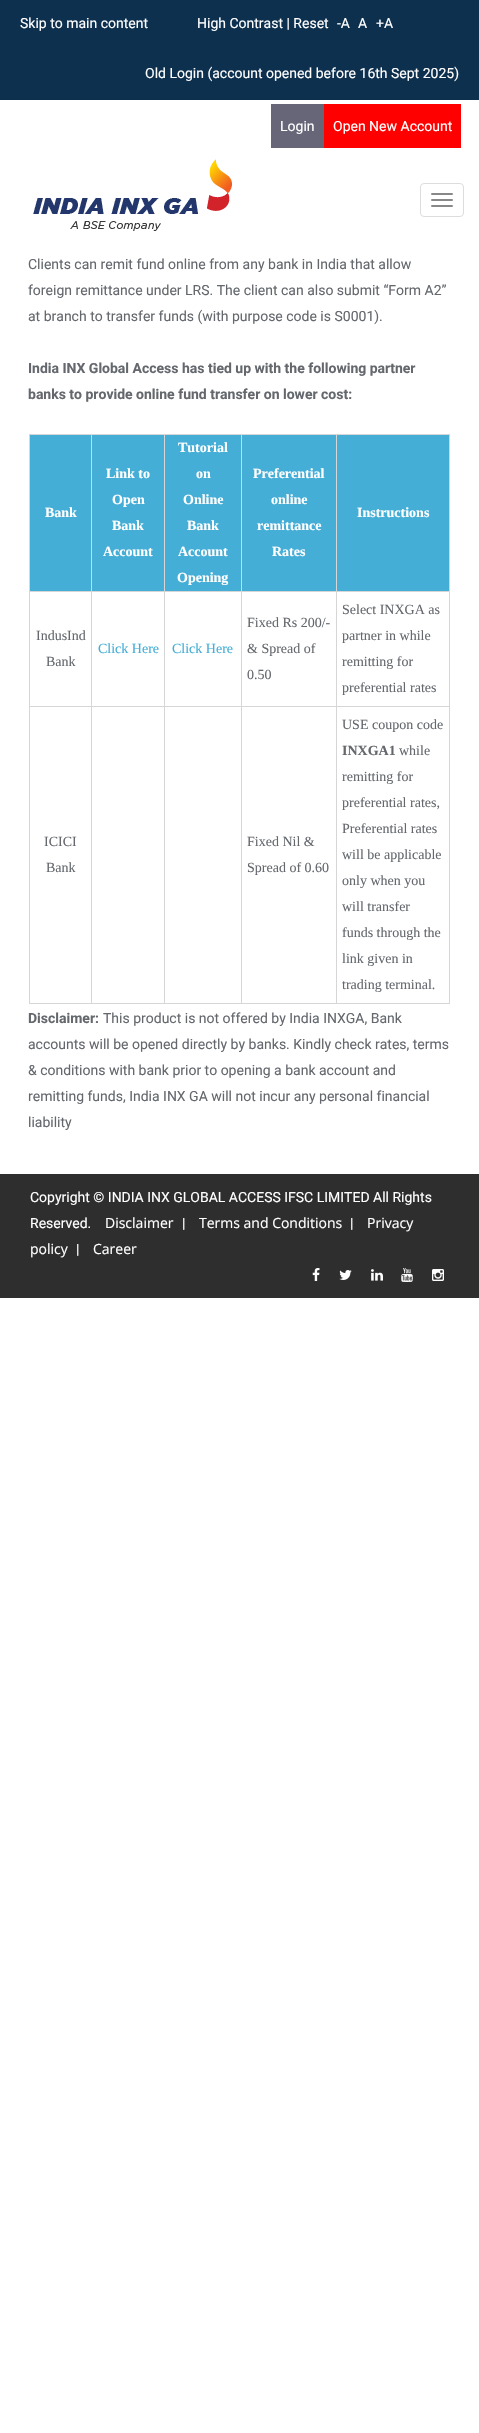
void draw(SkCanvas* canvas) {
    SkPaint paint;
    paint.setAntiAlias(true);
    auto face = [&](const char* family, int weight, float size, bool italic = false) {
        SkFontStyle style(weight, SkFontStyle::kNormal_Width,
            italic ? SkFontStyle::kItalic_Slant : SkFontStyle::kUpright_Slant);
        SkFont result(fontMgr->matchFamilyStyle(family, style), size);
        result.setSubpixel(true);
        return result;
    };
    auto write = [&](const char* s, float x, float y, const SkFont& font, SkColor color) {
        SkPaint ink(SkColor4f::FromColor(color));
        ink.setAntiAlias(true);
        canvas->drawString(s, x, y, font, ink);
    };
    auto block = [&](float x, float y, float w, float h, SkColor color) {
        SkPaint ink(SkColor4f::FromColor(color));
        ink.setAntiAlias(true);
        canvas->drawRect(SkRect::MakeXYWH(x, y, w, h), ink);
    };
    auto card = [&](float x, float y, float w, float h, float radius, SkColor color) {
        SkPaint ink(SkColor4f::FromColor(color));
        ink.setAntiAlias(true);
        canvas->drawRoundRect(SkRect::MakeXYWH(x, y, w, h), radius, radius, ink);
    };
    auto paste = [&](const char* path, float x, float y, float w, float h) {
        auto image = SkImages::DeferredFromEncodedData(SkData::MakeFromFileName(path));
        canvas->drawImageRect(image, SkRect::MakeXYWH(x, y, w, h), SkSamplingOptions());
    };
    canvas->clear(SK_ColorWHITE);
    block(0, 0, 479, 100, SkColorSetRGB(14, 48, 79));
    auto kFont1 = face("Roboto", 400, 14);
    write("Skip to main content", 20, 28, kFont1, SK_ColorWHITE);
    write("High Contrast | Reset", 197, 28, kFont1, SK_ColorWHITE);
    write("-A", 337, 28, kFont1, SK_ColorWHITE);
    write("A", 358, 28, kFont1, SK_ColorWHITE);
    write("+A", 376, 28, kFont1, SK_ColorWHITE);
    write("Old Login (account opened before 16th Sept 2025)", 145, 78, kFont1, SK_ColorWHITE);
    block(271, 104, 53, 44, SkColorSetRGB(102, 102, 120));
    write("Login", 280, 131, kFont1, SK_ColorWHITE);
    block(324, 104, 137, 44, SkColorSetRGB(255, 0, 0));
    write("Open New Account", 333, 131, kFont1, SK_ColorWHITE);
    paste("pic1.png", 33, 159, 199, 72);
    paint.setStyle(SkPaint::kStroke_Style);
    paint.setStrokeWidth(1);
    paint.setColor(SkColorSetRGB(221, 221, 221));
    canvas->drawRoundRect(SkRect::MakeXYWH(420.5f, 183.5f, 43, 33), 3.5f, 3.5f, paint);
    card(431, 193, 22, 2, 1, SkColorSetRGB(136, 136, 136));
    card(431, 199, 22, 2, 1, SkColorSetRGB(136, 136, 136));
    card(431, 205, 22, 2, 1, SkColorSetRGB(136, 136, 136));
    write("Clients can remit fund online from any bank in India that allow", 28, 269, kFont1, SkColorSetRGB(100, 104, 109));
    write("foreign remittance under LRS. The client can also submit “Form A2”", 28, 295, kFont1, SkColorSetRGB(100, 104, 109));
    write("at branch to transfer funds (with purpose code is S0001).", 28, 321, kFont1, SkColorSetRGB(100, 104, 109));
    auto kFont2 = face("Roboto", 700, 14);
    write("India INX Global Access has tied up with the following partner", 28, 373, kFont2, SkColorSetRGB(100, 104, 109));
    write("banks to provide online fund transfer on lower cost:", 28, 399, kFont2, SkColorSetRGB(100, 104, 109));
    block(29, 434, 421, 570, SkColorSetRGB(214, 214, 214));
    block(30, 435, 61, 156, SkColorSetRGB(69, 174, 214));
    auto kFont3 = face("Liberation Serif", 700, 14);
    write("Bank", 45, 517, kFont3, SK_ColorWHITE);
    block(92, 435, 72, 156, SkColorSetRGB(69, 174, 214));
    write("Link to", 106, 478, kFont3, SK_ColorWHITE);
    write("Open", 112, 504, kFont3, SK_ColorWHITE);
    write("Bank", 112, 530, kFont3, SK_ColorWHITE);
    write("Account", 103, 556, kFont3, SK_ColorWHITE);
    block(165, 435, 76, 156, SkColorSetRGB(69, 174, 214));
    write("Tutorial", 178, 452, kFont3, SK_ColorWHITE);
    write("on", 196, 478, kFont3, SK_ColorWHITE);
    write("Online", 183, 504, kFont3, SK_ColorWHITE);
    write("Bank", 187, 530, kFont3, SK_ColorWHITE);
    write("Account", 178, 556, kFont3, SK_ColorWHITE);
    write("Opening", 177, 582, kFont3, SK_ColorWHITE);
    block(242, 435, 94, 156, SkColorSetRGB(69, 174, 214));
    write("Preferential", 253, 478, kFont3, SK_ColorWHITE);
    write("online", 271, 504, kFont3, SK_ColorWHITE);
    write("remittance", 257, 530, kFont3, SK_ColorWHITE);
    write("Rates", 272, 556, kFont3, SK_ColorWHITE);
    block(337, 435, 112, 156, SkColorSetRGB(69, 174, 214));
    write("Instructions", 357, 517, kFont3, SK_ColorWHITE);
    block(30, 592, 61, 114, SK_ColorWHITE);
    auto kFont4 = face("Liberation Serif", 400, 14);
    write("IndusInd", 36, 640, kFont4, SkColorSetRGB(100, 104, 109));
    write("Bank", 46, 666, kFont4, SkColorSetRGB(100, 104, 109));
    block(92, 592, 72, 114, SK_ColorWHITE);
    write("Click Here", 98, 653, kFont4, SkColorSetRGB(69, 174, 214));
    block(165, 592, 76, 114, SK_ColorWHITE);
    write("Click Here", 172, 653, kFont4, SkColorSetRGB(69, 174, 214));
    block(242, 592, 94, 114, SK_ColorWHITE);
    write("Fixed Rs 200/-", 247, 627, kFont4, SkColorSetRGB(100, 104, 109));
    write("& Spread of", 247, 653, kFont4, SkColorSetRGB(100, 104, 109));
    write("0.50", 247, 679, kFont4, SkColorSetRGB(100, 104, 109));
    block(337, 592, 112, 114, SK_ColorWHITE);
    write("Select INXGA as", 342, 614, kFont4, SkColorSetRGB(100, 104, 109));
    write("partner in while", 342, 640, kFont4, SkColorSetRGB(100, 104, 109));
    write("remitting for", 342, 666, kFont4, SkColorSetRGB(100, 104, 109));
    write("preferential rates", 342, 692, kFont4, SkColorSetRGB(100, 104, 109));
    block(30, 707, 61, 296, SK_ColorWHITE);
    write("ICICI", 44, 846, kFont4, SkColorSetRGB(100, 104, 109));
    write("Bank", 46, 872, kFont4, SkColorSetRGB(100, 104, 109));
    block(92, 707, 72, 296, SK_ColorWHITE);
    block(165, 707, 76, 296, SK_ColorWHITE);
    block(242, 707, 94, 296, SK_ColorWHITE);
    write("Fixed Nil &", 247, 846, kFont4, SkColorSetRGB(100, 104, 109));
    write("Spread of 0.60", 247, 872, kFont4, SkColorSetRGB(100, 104, 109));
    block(337, 707, 112, 296, SK_ColorWHITE);
    write("USE coupon code", 342, 729, kFont4, SkColorSetRGB(100, 104, 109));
    write("INXGA1", 342, 755, kFont3, SkColorSetRGB(100, 104, 109));
    write("while", 399, 755, kFont4, SkColorSetRGB(100, 104, 109));
    write("remitting for", 342, 781, kFont4, SkColorSetRGB(100, 104, 109));
    write("preferential rates,", 342, 807, kFont4, SkColorSetRGB(100, 104, 109));
    write("Preferential rates", 342, 833, kFont4, SkColorSetRGB(100, 104, 109));
    write("will be applicable", 342, 859, kFont4, SkColorSetRGB(100, 104, 109));
    write("only when you", 342, 885, kFont4, SkColorSetRGB(100, 104, 109));
    write("will transfer", 342, 911, kFont4, SkColorSetRGB(100, 104, 109));
    write("funds through the", 342, 937, kFont4, SkColorSetRGB(100, 104, 109));
    write("link given in", 342, 963, kFont4, SkColorSetRGB(100, 104, 109));
    write("trading terminal.", 342, 989, kFont4, SkColorSetRGB(100, 104, 109));
    write("Disclaimer:", 28, 1023, kFont2, SkColorSetRGB(100, 104, 109));
    write("This product is not offered by India INXGA, Bank", 103, 1023, kFont1, SkColorSetRGB(100, 104, 109));
    write("accounts will be opened directly by banks. Kindly check rates, terms", 28, 1049, kFont1, SkColorSetRGB(100, 104, 109));
    write("& conditions with bank prior to opening a bank account and", 28, 1075, kFont1, SkColorSetRGB(100, 104, 109));
    write("remitting funds, India INX GA will not incur any personal financial", 28, 1101, kFont1, SkColorSetRGB(100, 104, 109));
    write("liability", 28, 1127, kFont1, SkColorSetRGB(100, 104, 109));
    block(0, 1174, 479, 124, SkColorSetRGB(46, 46, 46));
    write("Copyright © INDIA INX GLOBAL ACCESS IFSC LIMITED All Rights", 30, 1202, kFont1, SK_ColorWHITE);
    write("Reserved.", 30, 1228, kFont1, SK_ColorWHITE);
    auto kFont5 = face("Open Sans", 400, 14);
    write("Disclaimer", 105, 1228, kFont5, SK_ColorWHITE);
    write("|", 182, 1228, kFont1, SK_ColorWHITE);
    write("Terms and Conditions", 199, 1228, kFont5, SK_ColorWHITE);
    write("|", 350, 1228, kFont1, SK_ColorWHITE);
    write("Privacy", 367, 1228, kFont5, SK_ColorWHITE);
    write("policy", 30, 1254, kFont5, SK_ColorWHITE);
    write("|", 76, 1254, kFont1, SK_ColorWHITE);
    write("Career", 93, 1254, kFont5, SK_ColorWHITE);
    paste("pic2.png", 312, 1268, 8, 13);
    paste("pic3.png", 339, 1270, 13, 10);
    paste("pic4.png", 371, 1269, 12, 12);
    paste("pic5.png", 401, 1268, 12, 14);
    paste("pic6.png", 432, 1269, 12, 12);
}
